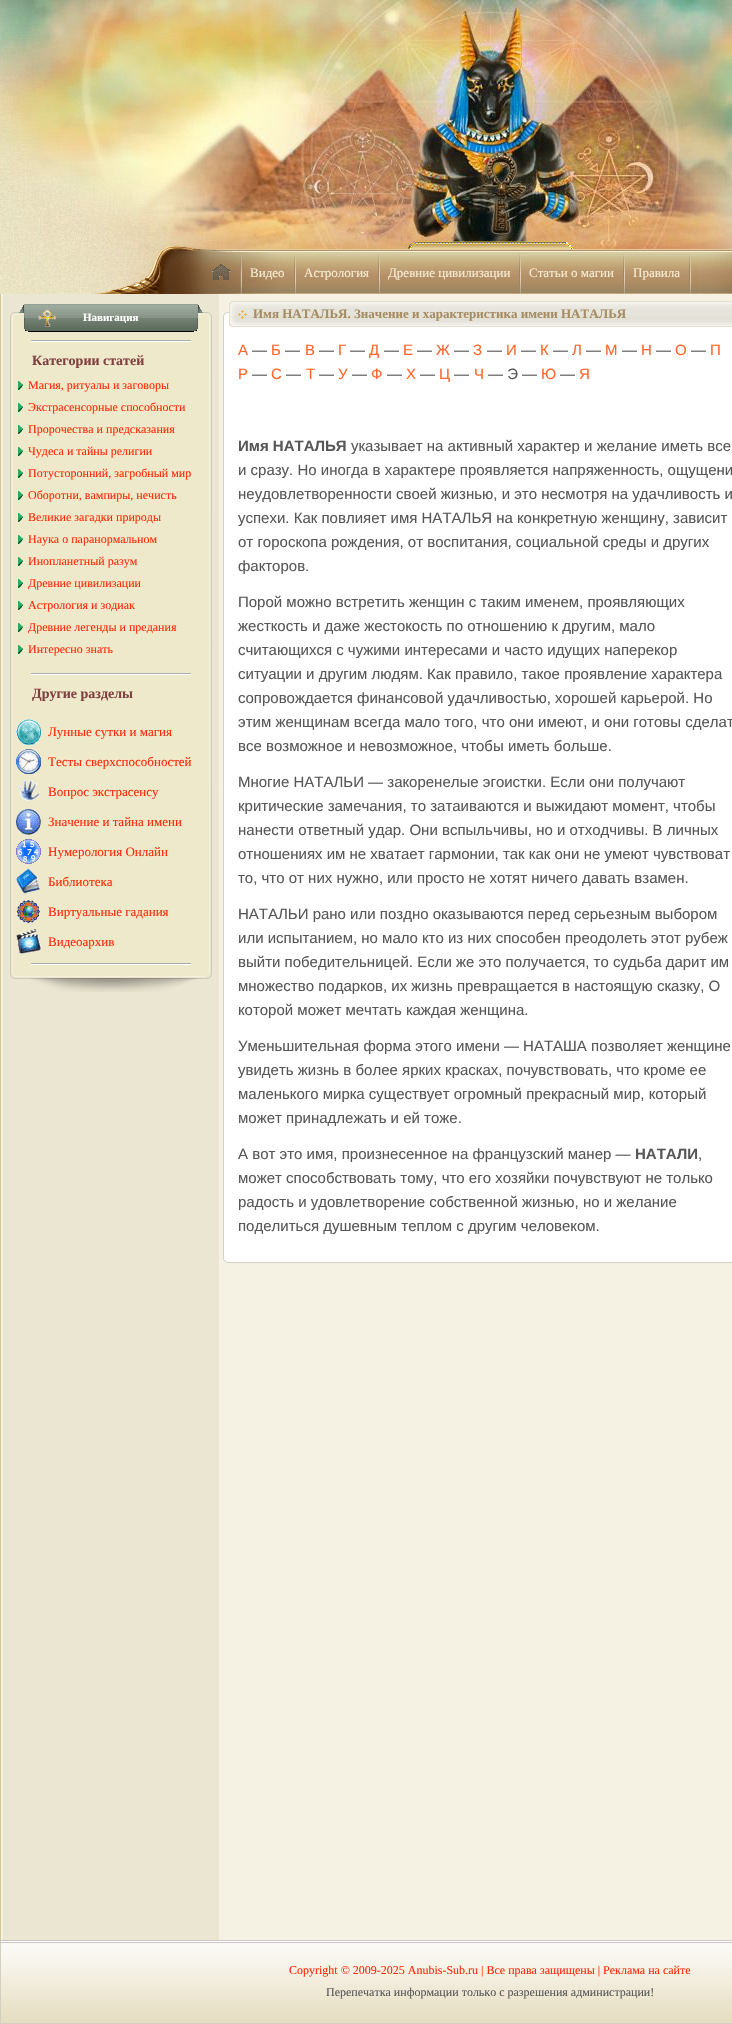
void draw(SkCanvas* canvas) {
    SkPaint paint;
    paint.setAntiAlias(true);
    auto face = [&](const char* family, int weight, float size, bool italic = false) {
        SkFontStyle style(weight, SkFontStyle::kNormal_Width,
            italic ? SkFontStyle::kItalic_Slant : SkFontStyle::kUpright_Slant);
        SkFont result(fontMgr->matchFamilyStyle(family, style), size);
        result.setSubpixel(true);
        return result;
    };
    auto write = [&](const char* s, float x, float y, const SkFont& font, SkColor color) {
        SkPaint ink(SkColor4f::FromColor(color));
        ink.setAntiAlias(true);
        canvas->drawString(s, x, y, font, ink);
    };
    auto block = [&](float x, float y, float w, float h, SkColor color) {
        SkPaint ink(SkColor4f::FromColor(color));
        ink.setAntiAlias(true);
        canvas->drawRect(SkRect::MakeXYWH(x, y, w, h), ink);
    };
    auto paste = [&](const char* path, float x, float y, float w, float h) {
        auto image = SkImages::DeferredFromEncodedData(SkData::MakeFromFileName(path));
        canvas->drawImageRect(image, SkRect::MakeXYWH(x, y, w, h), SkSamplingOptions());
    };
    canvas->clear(SkColorSetRGB(245, 242, 228));
    block(0, 294, 1, 1646, SkColorSetRGB(211, 199, 156));
    paste("pic1.png", 0, 0, 732, 294);
    paste("pic2.png", 90, 241, 642, 53);
    paste("pic3.png", 240, 252, 2, 42);
    paste("pic4.png", 212, 264, 18, 16);
    paste("pic5.png", 294, 254, 2, 40);
    auto kFont1 = face("Liberation Serif", 400, 13);
    write("Видео", 250, 277, kFont1, SkColorSetRGB(246, 237, 209));
    paste("pic5.png", 378, 254, 2, 40);
    write("Астрология", 304, 277, kFont1, SkColorSetRGB(246, 237, 209));
    paste("pic5.png", 519, 254, 2, 40);
    write("Древние цивилизации", 388, 277, kFont1, SkColorSetRGB(246, 237, 209));
    paste("pic5.png", 623, 254, 2, 40);
    write("Статьи о магии", 529, 277, kFont1, SkColorSetRGB(246, 237, 209));
    paste("pic5.png", 689, 254, 2, 40);
    write("Правила", 633, 277, kFont1, SkColorSetRGB(246, 237, 209));
    block(3, 294, 216, 1646, SkColorSetRGB(234, 230, 209));
    canvas->save();
    canvas->clipPath(SkPathBuilder().moveTo(15, 312).lineTo(207, 312).cubicTo(210, 312, 212, 314, 212, 317).lineTo(212, 974).cubicTo(212, 977, 210, 979, 207, 979).lineTo(15, 979).cubicTo(12, 979, 10, 977, 10, 974).lineTo(10, 317).cubicTo(10, 314, 12, 312, 15, 312).close().detach(), true);
    {
        const SkColor colors[] = {SkColorSetRGB(240, 233, 203), SkColorSetRGB(235, 228, 199)};
        const float stops[] = {0, 1};
        const SkPoint ends[] = {{111, 313}, {111, 978}};
        paint.setShader(SkGradientShader::MakeLinear(ends, colors, stops, 2, SkTileMode::kClamp));
        paint.setAlpha(255);
    }
    canvas->drawRect(SkRect::MakeXYWH(10, 313, 202, 665), paint);
    canvas->restore();
    paint.setStyle(SkPaint::kStroke_Style);
    paint.setStrokeWidth(1);
    paint.setShader(nullptr);
    paint.setColor(SkColorSetRGB(204, 201, 189));
    canvas->drawRoundRect(SkRect::MakeXYWH(10.5f, 312.5f, 201, 666), 4.5f, 4.5f, paint);
    paint.setStyle(SkPaint::kFill_Style);
    paint.setColor(SkColorSetRGB(239, 233, 203));
    canvas->drawRoundRect(SkRect::MakeXYWH(12.5f, 314.5f, 197, 662), 4.5f, 4.5f, paint);
    paint.setStyle(SkPaint::kStroke_Style);
    paint.setColor(SkColorSetRGB(245, 241, 222));
    canvas->drawRoundRect(SkRect::MakeXYWH(12.5f, 314.5f, 197, 662), 4.5f, 4.5f, paint);
    paste("pic6.png", 19, 304, 184, 28);
    auto kFont2 = face("Liberation Serif", 700, 11);
    write("Навигация", 83, 321, kFont2, SK_ColorWHITE);
    block(31, 340, 160, 1, SkColorSetRGB(172, 172, 172));
    block(31, 341, 160, 1, SK_ColorWHITE);
    auto kFont3 = face("Liberation Serif", 700, 14);
    write("Категории статей", 32, 365, kFont3, SkColorSetRGB(128, 64, 64));
    paste("pic7.png", 18, 381, 5, 9);
    auto kFont4 = face("Liberation Serif", 400, 12);
    write("Магия, ритуалы и заговоры", 28, 389, kFont4, SkColorSetRGB(255, 40, 6));
    paste("pic7.png", 18, 403, 5, 9);
    write("Экстрасенсорные способности", 28, 411, kFont4, SkColorSetRGB(255, 40, 6));
    paste("pic7.png", 18, 425, 5, 9);
    write("Пророчества и предсказания", 28, 433, kFont4, SkColorSetRGB(255, 40, 6));
    paste("pic7.png", 18, 447, 5, 9);
    write("Чудеса и тайны религии", 28, 455, kFont4, SkColorSetRGB(255, 40, 6));
    paste("pic7.png", 18, 469, 5, 9);
    write("Потусторонний, загробный мир", 28, 477, kFont4, SkColorSetRGB(255, 40, 6));
    paste("pic7.png", 18, 491, 5, 9);
    write("Оборотни, вампиры, нечисть", 28, 499, kFont4, SkColorSetRGB(255, 40, 6));
    paste("pic7.png", 18, 513, 5, 9);
    write("Великие загадки природы", 28, 521, kFont4, SkColorSetRGB(255, 40, 6));
    paste("pic7.png", 18, 535, 5, 9);
    write("Наука о паранормальном", 28, 543, kFont4, SkColorSetRGB(255, 40, 6));
    paste("pic7.png", 18, 557, 5, 9);
    write("Инопланетный разум", 28, 565, kFont4, SkColorSetRGB(255, 40, 6));
    paste("pic7.png", 18, 579, 5, 9);
    write("Древние цивилизации", 28, 587, kFont4, SkColorSetRGB(255, 40, 6));
    paste("pic7.png", 18, 601, 5, 9);
    write("Астрология и зодиак", 28, 609, kFont4, SkColorSetRGB(255, 40, 6));
    paste("pic7.png", 18, 623, 5, 9);
    write("Древние легенды и предания", 28, 631, kFont4, SkColorSetRGB(255, 40, 6));
    paste("pic7.png", 18, 645, 5, 9);
    write("Интересно знать", 28, 653, kFont4, SkColorSetRGB(255, 40, 6));
    block(31, 673, 160, 1, SkColorSetRGB(172, 172, 172));
    block(31, 674, 160, 1, SK_ColorWHITE);
    write("Другие разделы", 32, 698, kFont3, SkColorSetRGB(128, 64, 64));
    paste("pic8.png", 16, 719, 26, 26);
    write("Лунные сутки и магия", 48, 736, kFont1, SkColorSetRGB(255, 40, 6));
    paste("pic9.png", 16, 749, 25, 25);
    write("Тесты сверхспособностей", 48, 766, kFont1, SkColorSetRGB(255, 40, 6));
    paste("pic10.png", 18, 780, 22, 21);
    write("Вопрос экстрасенсу", 48, 796, kFont1, SkColorSetRGB(255, 40, 6));
    paste("pic11.png", 16, 809, 25, 26);
    write("Значение и тайна имени", 48, 826, kFont1, SkColorSetRGB(255, 40, 6));
    paste("pic12.png", 16, 839, 25, 25);
    write("Нумерология Онлайн", 48, 856, kFont1, SkColorSetRGB(255, 40, 6));
    paste("pic13.png", 16, 869, 24, 25);
    write("Библиотека", 48, 886, kFont1, SkColorSetRGB(255, 40, 6));
    paste("pic14.png", 16, 900, 24, 23);
    write("Виртуальные гадания", 48, 916, kFont1, SkColorSetRGB(255, 40, 6));
    paste("pic15.png", 16, 929, 25, 25);
    write("Видеоархив", 48, 946, kFont1, SkColorSetRGB(255, 40, 6));
    block(31, 963, 160, 1, SkColorSetRGB(172, 172, 172));
    block(31, 964, 160, 1, SK_ColorWHITE);
    paste("pic16.png", 30, 978, 170, 14);
    paint.setStyle(SkPaint::kFill_Style);
    paint.setColor(SK_ColorWHITE);
    canvas->drawRoundRect(SkRect::MakeXYWH(223.5f, 312.5f, 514, 950), 4.5f, 4.5f, paint);
    paint.setStyle(SkPaint::kStroke_Style);
    paint.setColor(SkColorSetRGB(210, 208, 200));
    canvas->drawRoundRect(SkRect::MakeXYWH(223.5f, 312.5f, 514, 950), 4.5f, 4.5f, paint);
    paste("pic17.png", 229, 302, 503, 24);
    paint.setColor(SkColorSetRGB(228, 224, 204));
    canvas->drawRoundRect(SkRect::MakeXYWH(229.5f, 301.5f, 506, 25), 2.5f, 2.5f, paint);
    paste("pic18.png", 230, 302, 17, 24);
    auto kFont5 = face("Liberation Serif", 700, 13);
    write("Имя НАТАЛЬЯ. Значение и характеристика имени НАТАЛЬЯ", 253, 318, kFont5, SkColorSetRGB(166, 140, 99));
    auto kFont6 = face("Liberation Sans", 400, 15);
    write("А", 238, 355, kFont6, SkColorSetRGB(255, 102, 43));
    write("—", 252, 355, kFont6, SkColorSetRGB(87, 87, 87));
    write("Б", 271, 355, kFont6, SkColorSetRGB(255, 102, 43));
    write("—", 285, 355, kFont6, SkColorSetRGB(87, 87, 87));
    write("В", 305, 355, kFont6, SkColorSetRGB(255, 102, 43));
    write("—", 319, 355, kFont6, SkColorSetRGB(87, 87, 87));
    write("Г", 338, 355, kFont6, SkColorSetRGB(255, 102, 43));
    write("—", 350, 355, kFont6, SkColorSetRGB(87, 87, 87));
    write("Д", 369, 355, kFont6, SkColorSetRGB(255, 102, 43));
    write("—", 384, 355, kFont6, SkColorSetRGB(87, 87, 87));
    write("Е", 403, 355, kFont6, SkColorSetRGB(255, 102, 43));
    write("—", 417, 355, kFont6, SkColorSetRGB(87, 87, 87));
    write("Ж", 436, 355, kFont6, SkColorSetRGB(255, 102, 43));
    write("—", 454, 355, kFont6, SkColorSetRGB(87, 87, 87));
    write("З", 473, 355, kFont6, SkColorSetRGB(255, 102, 43));
    write("—", 487, 355, kFont6, SkColorSetRGB(87, 87, 87));
    write("И", 506, 355, kFont6, SkColorSetRGB(255, 102, 43));
    write("—", 521, 355, kFont6, SkColorSetRGB(87, 87, 87));
    write("К", 540, 355, kFont6, SkColorSetRGB(255, 102, 43));
    write("—", 553, 355, kFont6, SkColorSetRGB(87, 87, 87));
    write("Л", 572, 355, kFont6, SkColorSetRGB(255, 102, 43));
    write("—", 586, 355, kFont6, SkColorSetRGB(87, 87, 87));
    write("М", 605, 355, kFont6, SkColorSetRGB(255, 102, 43));
    write("—", 622, 355, kFont6, SkColorSetRGB(87, 87, 87));
    write("Н", 641, 355, kFont6, SkColorSetRGB(255, 102, 43));
    write("—", 656, 355, kFont6, SkColorSetRGB(87, 87, 87));
    write("О", 675, 355, kFont6, SkColorSetRGB(255, 102, 43));
    write("—", 691, 355, kFont6, SkColorSetRGB(87, 87, 87));
    write("П", 710, 355, kFont6, SkColorSetRGB(255, 102, 43));
    write("Р", 238, 379, kFont6, SkColorSetRGB(255, 102, 43));
    write("—", 252, 379, kFont6, SkColorSetRGB(87, 87, 87));
    write("С", 271, 379, kFont6, SkColorSetRGB(255, 102, 43));
    write("—", 286, 379, kFont6, SkColorSetRGB(87, 87, 87));
    write("Т", 306, 379, kFont6, SkColorSetRGB(255, 102, 43));
    write("—", 319, 379, kFont6, SkColorSetRGB(87, 87, 87));
    write("У", 338, 379, kFont6, SkColorSetRGB(255, 102, 43));
    write("—", 352, 379, kFont6, SkColorSetRGB(87, 87, 87));
    write("Ф", 371, 379, kFont6, SkColorSetRGB(255, 102, 43));
    write("—", 387, 379, kFont6, SkColorSetRGB(87, 87, 87));
    write("Х", 406, 379, kFont6, SkColorSetRGB(255, 102, 43));
    write("—", 420, 379, kFont6, SkColorSetRGB(87, 87, 87));
    write("Ц", 439, 379, kFont6, SkColorSetRGB(255, 102, 43));
    write("—", 454, 379, kFont6, SkColorSetRGB(87, 87, 87));
    write("Ч", 474, 379, kFont6, SkColorSetRGB(255, 102, 43));
    write("— Э —", 488, 379, kFont6, SkColorSetRGB(87, 87, 87));
    write("Ю", 541, 379, kFont6, SkColorSetRGB(255, 102, 43));
    write("—", 560, 379, kFont6, SkColorSetRGB(87, 87, 87));
    write("Я", 579, 379, kFont6, SkColorSetRGB(255, 102, 43));
    auto kFont7 = face("Liberation Sans", 700, 15);
    write("Имя НАТАЛЬЯ", 238, 451, kFont7, SkColorSetRGB(87, 87, 87));
    write("указывает на активный характер и желание иметь все", 351, 451, kFont6, SkColorSetRGB(87, 87, 87));
    write("и сразу. Но иногда в характере проявляется напряженность, ощущени", 238, 475, kFont6, SkColorSetRGB(87, 87, 87));
    write("неудовлетворенности своей жизнью, и это несмотря на удачливость и", 238, 499, kFont6, SkColorSetRGB(87, 87, 87));
    write("успехи. Как повлияет имя НАТАЛЬЯ на конкретную женщину, зависит", 238, 523, kFont6, SkColorSetRGB(87, 87, 87));
    write("от гороскопа рождения, от воспитания, социальной среды и других", 238, 547, kFont6, SkColorSetRGB(87, 87, 87));
    write("факторов.", 238, 571, kFont6, SkColorSetRGB(87, 87, 87));
    write("Порой можно встретить женщин с таким именем, проявляющих", 238, 607, kFont6, SkColorSetRGB(87, 87, 87));
    write("жесткость и даже жестокость по отношению к другим, мало", 238, 631, kFont6, SkColorSetRGB(87, 87, 87));
    write("считающихся с чужими интересами и часто идущих наперекор", 238, 655, kFont6, SkColorSetRGB(87, 87, 87));
    write("ситуации и другим людям. Как правило, такое проявление характера", 238, 679, kFont6, SkColorSetRGB(87, 87, 87));
    write("сопровождается финансовой удачливостью, хорошей карьерой. Но", 238, 703, kFont6, SkColorSetRGB(87, 87, 87));
    write("этим женщинам всегда мало того, что они имеют, и они готовы сделат", 238, 727, kFont6, SkColorSetRGB(87, 87, 87));
    write("все возможное и невозможное, чтобы иметь больше.", 238, 751, kFont6, SkColorSetRGB(87, 87, 87));
    write("Многие НАТАЛЬИ — закоренелые эгоистки. Если они получают", 238, 787, kFont6, SkColorSetRGB(87, 87, 87));
    write("критические замечания, то затаиваются и выжидают момент, чтобы", 238, 811, kFont6, SkColorSetRGB(87, 87, 87));
    write("нанести ответный удар. Они вспыльчивы, но и отходчивы. В личных", 238, 835, kFont6, SkColorSetRGB(87, 87, 87));
    write("отношениях им не хватает гармонии, так как они не умеют чувствоват", 238, 859, kFont6, SkColorSetRGB(87, 87, 87));
    write("то, что от них нужно, или просто не хотят ничего давать взамен.", 238, 883, kFont6, SkColorSetRGB(87, 87, 87));
    write("НАТАЛЬИ рано или поздно оказываются перед серьезным выбором", 238, 919, kFont6, SkColorSetRGB(87, 87, 87));
    write("или испытанием, но мало кто из них способен преодолеть этот рубеж", 238, 943, kFont6, SkColorSetRGB(87, 87, 87));
    write("выйти победительницей. Если же это получается, то судьба дарит им", 238, 967, kFont6, SkColorSetRGB(87, 87, 87));
    write("множество подарков, их жизнь превращается в настоящую сказку, О", 238, 991, kFont6, SkColorSetRGB(87, 87, 87));
    write("которой может мечтать каждая женщина.", 238, 1015, kFont6, SkColorSetRGB(87, 87, 87));
    write("Уменьшительная форма этого имени — НАТАША позволяет женщине", 238, 1051, kFont6, SkColorSetRGB(87, 87, 87));
    write("увидеть жизнь в более ярких красках, почувствовать, что кроме ее", 238, 1075, kFont6, SkColorSetRGB(87, 87, 87));
    write("маленького мирка существует огромный прекрасный мир, который", 238, 1099, kFont6, SkColorSetRGB(87, 87, 87));
    write("может принадлежать и ей тоже.", 238, 1123, kFont6, SkColorSetRGB(87, 87, 87));
    write("А вот это имя, произнесенное на французский манер —", 238, 1159, kFont6, SkColorSetRGB(87, 87, 87));
    write("НАТАЛИ", 635, 1159, kFont7, SkColorSetRGB(87, 87, 87));
    write(",", 698, 1159, kFont6, SkColorSetRGB(87, 87, 87));
    write("может способствовать тому, что его хозяйки почувствуют не только", 238, 1183, kFont6, SkColorSetRGB(87, 87, 87));
    write("радость и удовлетворение собственной жизнью, но и желание", 238, 1207, kFont6, SkColorSetRGB(87, 87, 87));
    write("поделиться душевным теплом с другим человеком.", 238, 1231, kFont6, SkColorSetRGB(87, 87, 87));
    paint.setStyle(SkPaint::kFill_Style);
    paint.setColor(SK_ColorWHITE);
    canvas->drawRect(SkRect::MakeXYWH(0.5f, 1940.5f, 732, 2), paint);
    paint.setStyle(SkPaint::kStroke_Style);
    paint.setColor(SkColorSetRGB(207, 198, 198));
    canvas->drawRect(SkRect::MakeXYWH(0.5f, 1940.5f, 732, 2), paint);
    paste("pic19.png", 1, 1943, 731, 80);
    block(0, 2023, 732, 1, SkColorSetRGB(212, 208, 193));
    block(0, 1943, 1, 81, SkColorSetRGB(212, 208, 193));
    write("Copyright © 2009-2025 Anubis-Sub.ru | Все права защищены | Реклама на сайте", 289, 1974, kFont4, SkColorSetRGB(255, 40, 6));
    write("Перепечатка информации только с разрешения администрации!", 326, 1996, kFont4, SkColorSetRGB(87, 87, 87));
}
